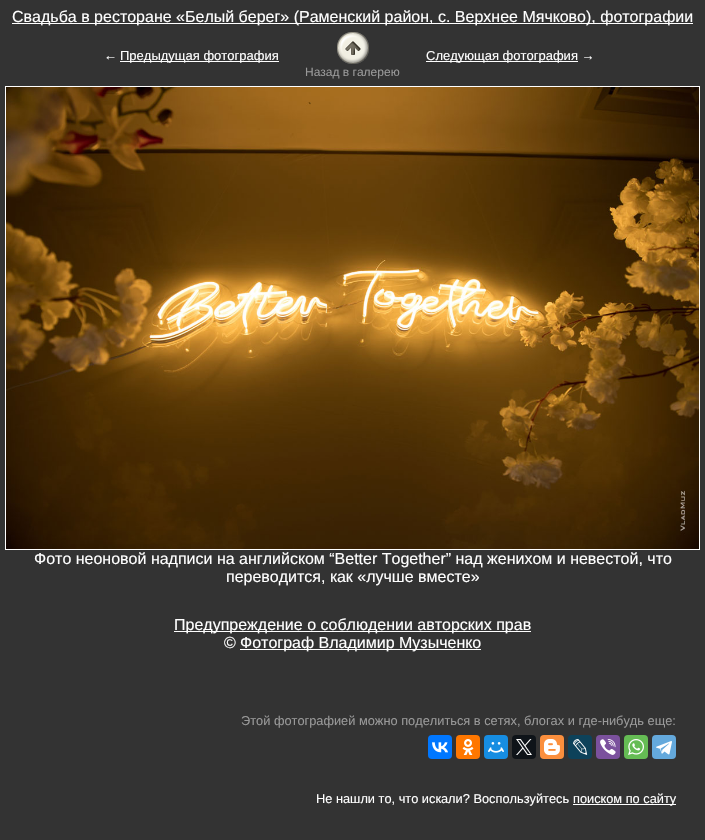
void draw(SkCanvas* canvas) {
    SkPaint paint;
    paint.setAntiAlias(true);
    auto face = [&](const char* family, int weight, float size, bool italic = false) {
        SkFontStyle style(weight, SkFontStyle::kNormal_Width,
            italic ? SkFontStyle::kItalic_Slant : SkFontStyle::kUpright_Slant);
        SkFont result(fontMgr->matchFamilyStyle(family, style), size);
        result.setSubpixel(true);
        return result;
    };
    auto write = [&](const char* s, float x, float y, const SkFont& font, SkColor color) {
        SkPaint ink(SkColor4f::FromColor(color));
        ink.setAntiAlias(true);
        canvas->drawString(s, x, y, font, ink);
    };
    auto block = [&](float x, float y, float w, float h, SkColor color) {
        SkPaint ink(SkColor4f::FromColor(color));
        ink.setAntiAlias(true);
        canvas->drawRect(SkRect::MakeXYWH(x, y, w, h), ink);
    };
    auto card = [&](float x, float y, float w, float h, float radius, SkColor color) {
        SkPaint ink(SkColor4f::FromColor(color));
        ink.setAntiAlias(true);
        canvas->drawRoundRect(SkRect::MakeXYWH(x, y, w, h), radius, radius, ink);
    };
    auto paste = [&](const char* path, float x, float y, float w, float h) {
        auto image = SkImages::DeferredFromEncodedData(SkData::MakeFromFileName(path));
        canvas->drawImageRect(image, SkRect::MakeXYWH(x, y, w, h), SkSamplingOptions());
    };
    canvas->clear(SkColorSetRGB(51, 51, 51));
    block(12, 23, 681, 1, SK_ColorWHITE);
    auto kFont1 = face("Liberation Sans", 400, 16);
    write("Свадьба в ресторане «Белый берег» (Раменский район, с. Верхнее Мячково), фотографии", 12, 22, kFont1, SK_ColorWHITE);
    auto kFont2 = face("Liberation Sans", 400, 13);
    write("←", 104, 60, kFont2, SK_ColorWHITE);
    block(120, 61, 159, 1, SK_ColorWHITE);
    write("Предыдущая фотография", 120, 60, kFont2, SK_ColorWHITE);
    block(426, 61, 152, 1, SK_ColorWHITE);
    write("Следующая фотография →", 426, 60, kFont2, SK_ColorWHITE);
    paste("pic1.png", 337, 32, 32, 32);
    auto kFont3 = face("Liberation Sans", 400, 12);
    write("Назад в галерею", 305, 76, kFont3, SkColorSetRGB(153, 153, 153));
    paint.setStyle(SkPaint::kStroke_Style);
    paint.setStrokeWidth(1);
    paint.setColor(SK_ColorWHITE);
    canvas->drawRect(SkRect::MakeXYWH(5.5f, 86.5f, 694, 463), paint);
    paste("pic2.png", 6, 87, 693, 462);
    write("Фото неоновой надписи на английском “Better Together” над женихом и невестой, что", 34, 564, kFont1, SK_ColorWHITE);
    write("переводится, как «лучше вместе»", 226, 582, kFont1, SK_ColorWHITE);
    block(174, 631, 357, 1, SK_ColorWHITE);
    write("Предупреждение о соблюдении авторских прав", 174, 630, kFont1, SK_ColorWHITE);
    write("©", 224, 648, kFont1, SK_ColorWHITE);
    block(240, 649, 241, 1, SK_ColorWHITE);
    write("Фотограф Владимир Музыченко", 240, 648, kFont1, SK_ColorWHITE);
    auto kFont4 = face("Liberation Sans", 400, 12.8f);
    write("Этой фотографией можно поделиться в сетях, блогах и где-нибудь еще:", 241, 725, kFont4, SkColorSetRGB(153, 153, 153));
    card(428, 735, 24, 24, 4, SkColorSetRGB(0, 119, 255));
    paste("pic3.png", 432, 742, 16, 11);
    card(456, 735, 24, 24, 4, SkColorSetRGB(255, 119, 0));
    paste("pic4.png", 462, 739, 12, 16);
    card(484, 735, 24, 24, 4, SkColorSetRGB(22, 141, 226));
    paste("pic5.png", 488, 742, 16, 11);
    card(512, 735, 24, 24, 4, SkColorSetRGB(15, 20, 25));
    paste("pic6.png", 516, 739, 16, 16);
    card(540, 735, 24, 24, 4, SkColorSetRGB(251, 143, 61));
    paste("pic7.png", 544, 739, 16, 16);
    card(568, 735, 24, 24, 4, SkColorSetRGB(13, 66, 90));
    paste("pic8.png", 573, 739, 15, 16);
    card(596, 735, 24, 24, 4, SkColorSetRGB(123, 81, 157));
    paste("pic9.png", 600, 739, 16, 16);
    card(624, 735, 24, 24, 4, SkColorSetRGB(101, 188, 84));
    paste("pic10.png", 628, 739, 16, 16);
    card(652, 735, 24, 24, 4, SkColorSetRGB(100, 169, 220));
    paste("pic11.png", 656, 741, 16, 14);
    write("Не нашли то, что искали? Воспользуйтесь", 316, 803, kFont4, SK_ColorWHITE);
    block(573, 804, 103, 1, SK_ColorWHITE);
    write("поиском по сайту", 573, 803, kFont4, SK_ColorWHITE);
}
